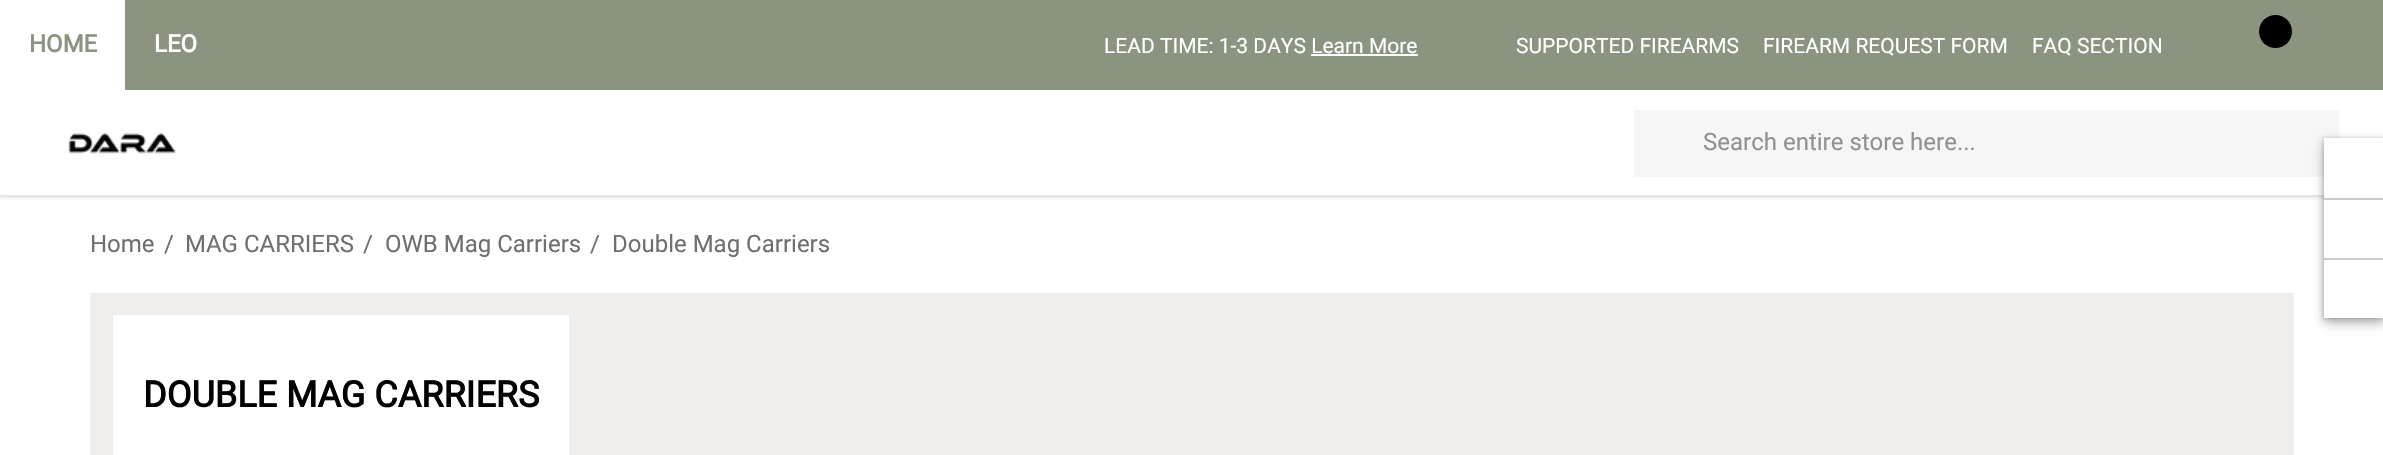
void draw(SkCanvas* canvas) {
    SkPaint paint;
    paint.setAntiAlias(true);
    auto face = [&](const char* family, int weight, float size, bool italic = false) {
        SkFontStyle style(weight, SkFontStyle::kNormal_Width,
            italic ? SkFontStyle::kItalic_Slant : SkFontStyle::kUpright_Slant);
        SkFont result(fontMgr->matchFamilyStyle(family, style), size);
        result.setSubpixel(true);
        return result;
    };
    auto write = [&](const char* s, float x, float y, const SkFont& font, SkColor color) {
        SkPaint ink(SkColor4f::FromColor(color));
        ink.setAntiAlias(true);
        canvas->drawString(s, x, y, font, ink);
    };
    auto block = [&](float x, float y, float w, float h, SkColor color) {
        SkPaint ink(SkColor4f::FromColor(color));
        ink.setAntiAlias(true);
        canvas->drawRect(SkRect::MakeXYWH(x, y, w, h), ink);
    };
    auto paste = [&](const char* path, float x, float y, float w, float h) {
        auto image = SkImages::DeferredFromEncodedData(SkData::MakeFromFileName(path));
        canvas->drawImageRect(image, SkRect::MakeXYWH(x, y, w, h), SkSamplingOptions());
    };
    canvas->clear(SK_ColorWHITE);
    canvas->save();
    canvas->clipRect(SkRect::MakeXYWH(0, 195, 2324, 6));
    paint.setColor(SkColorSetRGB(229, 229, 229));
    paint.setMaskFilter(SkMaskFilter::MakeBlur(kNormal_SkBlurStyle, 1.5f));
    canvas->drawRect(SkRect::MakeXYWH(-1, 0, 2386, 198), paint);
    paint.setMaskFilter(nullptr);
    canvas->restore();
    block(125, 0, 2258, 90, SkColorSetRGB(139, 148, 128));
    auto kFont1 = face("Roboto", 700, 24);
    write("HOME", 29, 52, kFont1, SkColorSetRGB(139, 148, 128));
    write("LEO", 154, 52, kFont1, SK_ColorWHITE);
    auto kFont2 = face("Roboto", 400, 21);
    write("LEAD TIME: 1-3 DAYS Learn More", 1104, 53, kFont2, SK_ColorWHITE);
    block(1311, 54, 107, 2, SK_ColorWHITE);
    write("SUPPORTED FIREARMS", 1516, 53, kFont2, SK_ColorWHITE);
    write("FIREARM REQUEST FORM", 1763, 53, kFont2, SK_ColorWHITE);
    write("FAQ SECTION", 2032, 53, kFont2, SK_ColorWHITE);
    paint.setColor(SK_ColorBLACK);
    canvas->drawCircle(2275.5f, 31.5f, 16.5f, paint);
    paste("pic1.png", 68, 133, 108, 21);
    block(1634, 110, 705, 67, SkColorSetRGB(246, 246, 246));
    auto kFont3 = face("Roboto", 400, 24);
    write("Search entire store here...", 1703, 150, kFont3, SkColorSetRGB(145, 145, 145));
    write("Home", 90, 252, kFont3, SkColorSetRGB(111, 111, 111));
    write("/", 164, 252, kFont3, SkColorSetRGB(111, 111, 111));
    write("MAG CARRIERS", 185, 252, kFont3, SkColorSetRGB(111, 111, 111));
    write("/", 363, 252, kFont3, SkColorSetRGB(111, 111, 111));
    write("OWB Mag Carriers", 385, 252, kFont3, SkColorSetRGB(111, 111, 111));
    write("/", 590, 252, kFont3, SkColorSetRGB(111, 111, 111));
    write("Double Mag Carriers", 612, 252, kFont3, SkColorSetRGB(111, 111, 111));
    block(90, 293, 2204, 162, SkColorSetRGB(240, 238, 237));
    block(113, 315, 456, 140, SK_ColorWHITE);
    auto kFont4 = face("Roboto", 700, 36);
    write("DOUBLE MAG CARRIERS", 143, 407, kFont4, SK_ColorBLACK);
    paint.setColor(SkColorSetARGB(77, 0, 0, 0));
    paint.setMaskFilter(SkMaskFilter::MakeBlur(kNormal_SkBlurStyle, 5));
    canvas->drawRect(SkRect::MakeXYWH(2324, 143, 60, 180), paint);
    paint.setMaskFilter(nullptr);
    paint.setColor(SkColorSetARGB(26, 0, 0, 0));
    paint.setMaskFilter(SkMaskFilter::MakeBlur(kNormal_SkBlurStyle, 1.5f));
    canvas->drawRect(SkRect::MakeXYWH(2322, 137, 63, 183), paint);
    paint.setMaskFilter(nullptr);
    block(2324, 138, 59, 180, SK_ColorWHITE);
    block(2324, 198, 59, 2, SkColorSetRGB(204, 204, 204));
    block(2324, 258, 59, 2, SkColorSetRGB(204, 204, 204));
}
